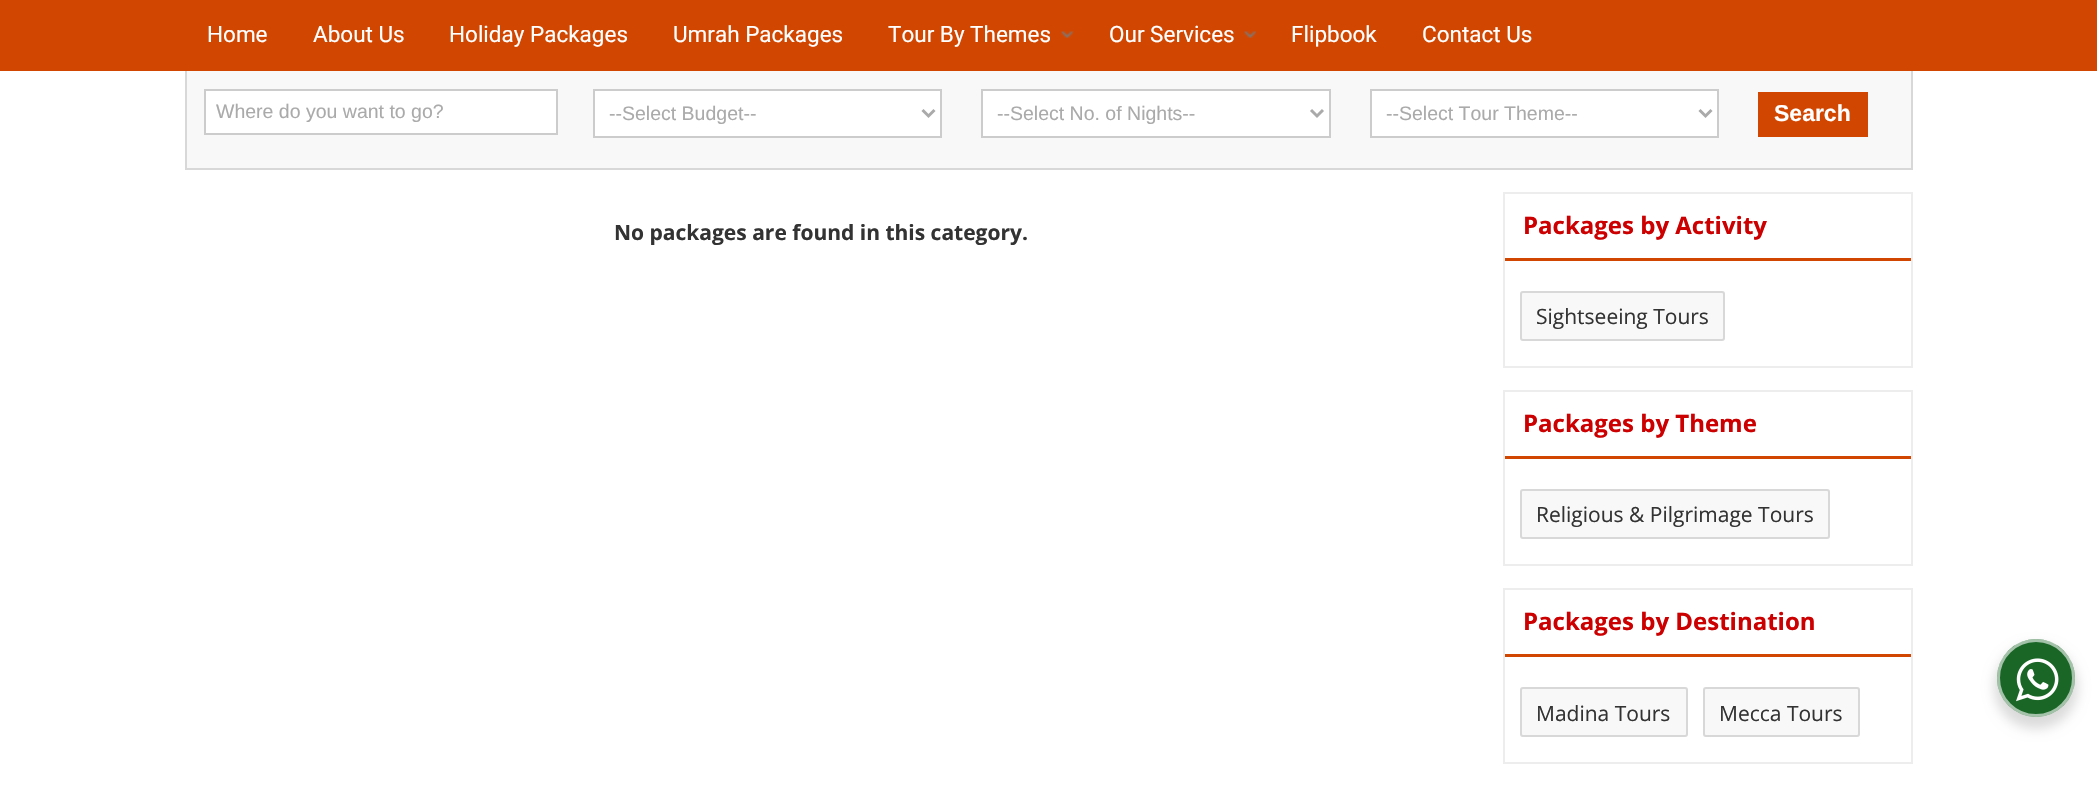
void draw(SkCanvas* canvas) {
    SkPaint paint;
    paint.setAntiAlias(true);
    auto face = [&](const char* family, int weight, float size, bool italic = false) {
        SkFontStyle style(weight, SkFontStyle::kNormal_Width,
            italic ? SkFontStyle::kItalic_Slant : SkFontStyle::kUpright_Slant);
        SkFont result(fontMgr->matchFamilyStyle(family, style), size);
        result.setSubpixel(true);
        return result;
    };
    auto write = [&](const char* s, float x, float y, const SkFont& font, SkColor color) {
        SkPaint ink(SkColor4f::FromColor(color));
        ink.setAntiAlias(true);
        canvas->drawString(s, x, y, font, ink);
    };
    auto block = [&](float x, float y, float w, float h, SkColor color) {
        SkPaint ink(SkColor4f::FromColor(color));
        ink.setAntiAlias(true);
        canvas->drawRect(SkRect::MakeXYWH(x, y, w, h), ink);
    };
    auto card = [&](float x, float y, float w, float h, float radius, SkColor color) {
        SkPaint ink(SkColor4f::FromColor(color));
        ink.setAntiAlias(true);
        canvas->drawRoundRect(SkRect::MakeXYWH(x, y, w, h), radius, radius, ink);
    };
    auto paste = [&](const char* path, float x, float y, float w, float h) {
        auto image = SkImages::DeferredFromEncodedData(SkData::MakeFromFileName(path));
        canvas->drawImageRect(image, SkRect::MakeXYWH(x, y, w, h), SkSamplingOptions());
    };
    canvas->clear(SK_ColorWHITE);
    block(187, 71, 1724, 97, SkColorSetRGB(248, 248, 248));
    paint.setStyle(SkPaint::kStroke_Style);
    paint.setStrokeWidth(2);
    paint.setColor(SkColorSetRGB(216, 216, 216));
    canvas->drawRect(SkRect::MakeXYWH(186, 19, 1726, 150), paint);
    block(0, 0, 2097, 71, SkColorSetRGB(209, 71, 2));
    auto kFont1 = face("Roboto", 400, 22.5f);
    write("Home", 207, 42, kFont1, SK_ColorWHITE);
    write("About Us", 313, 42, kFont1, SK_ColorWHITE);
    write("Holiday Packages", 449, 42, kFont1, SK_ColorWHITE);
    write("Umrah Packages", 673, 42, kFont1, SK_ColorWHITE);
    write("Tour By Themes", 888, 42, kFont1, SK_ColorWHITE);
    paste("pic1.png", 1061, 31, 13, 7);
    write("Our Services", 1109, 42, kFont1, SK_ColorWHITE);
    paste("pic1.png", 1244, 31, 13, 7);
    write("Flipbook", 1291, 42, kFont1, SK_ColorWHITE);
    write("Contact Us", 1422, 42, kFont1, SK_ColorWHITE);
    paint.setStyle(SkPaint::kFill_Style);
    paint.setColor(SK_ColorWHITE);
    canvas->drawRect(SkRect::MakeXYWH(205, 90, 352, 44), paint);
    paint.setStyle(SkPaint::kStroke_Style);
    paint.setColor(SkColorSetRGB(204, 204, 204));
    canvas->drawRect(SkRect::MakeXYWH(205, 90, 352, 44), paint);
    auto kFont2 = face("Liberation Sans", 400, 19.5f);
    write("Where do you want to go?", 216, 118, kFont2, SkColorSetRGB(170, 170, 170));
    paint.setStyle(SkPaint::kFill_Style);
    paint.setColor(SK_ColorWHITE);
    canvas->drawRect(SkRect::MakeXYWH(594, 90, 347, 47), paint);
    paint.setStyle(SkPaint::kStroke_Style);
    paint.setColor(SkColorSetRGB(204, 204, 204));
    canvas->drawRect(SkRect::MakeXYWH(594, 90, 347, 47), paint);
    paint.setStrokeWidth(3);
    paint.setColor(SkColorSetRGB(170, 170, 170));
    canvas->drawPath(SkPathBuilder().moveTo(922.5f, 110).lineTo(928.5f, 116).lineTo(934.5f, 110).detach(), paint);
    write("--Select Budget--", 609, 120, kFont2, SkColorSetRGB(170, 170, 170));
    paint.setStyle(SkPaint::kFill_Style);
    paint.setColor(SK_ColorWHITE);
    canvas->drawRect(SkRect::MakeXYWH(982, 90, 348, 47), paint);
    paint.setStyle(SkPaint::kStroke_Style);
    paint.setStrokeWidth(2);
    paint.setColor(SkColorSetRGB(204, 204, 204));
    canvas->drawRect(SkRect::MakeXYWH(982, 90, 348, 47), paint);
    paint.setStrokeWidth(3);
    paint.setColor(SkColorSetRGB(170, 170, 170));
    canvas->drawPath(SkPathBuilder().moveTo(1311, 110).lineTo(1317, 116).lineTo(1323, 110).detach(), paint);
    write("--Select No. of Nights--", 997, 120, kFont2, SkColorSetRGB(170, 170, 170));
    paint.setStyle(SkPaint::kFill_Style);
    paint.setColor(SK_ColorWHITE);
    canvas->drawRect(SkRect::MakeXYWH(1371, 90, 347, 47), paint);
    paint.setStyle(SkPaint::kStroke_Style);
    paint.setStrokeWidth(2);
    paint.setColor(SkColorSetRGB(204, 204, 204));
    canvas->drawRect(SkRect::MakeXYWH(1371, 90, 347, 47), paint);
    paint.setStrokeWidth(3);
    paint.setColor(SkColorSetRGB(170, 170, 170));
    canvas->drawPath(SkPathBuilder().moveTo(1699.5f, 110).lineTo(1705.5f, 116).lineTo(1711.5f, 110).detach(), paint);
    write("--Select Tour Theme--", 1386, 120, kFont2, SkColorSetRGB(170, 170, 170));
    block(1758, 92, 110, 45, SkColorSetRGB(209, 71, 2));
    auto kFont3 = face("Liberation Sans", 700, 23);
    write("Search", 1774, 121, kFont3, SK_ColorWHITE);
    auto kFont4 = face("Open Sans", 700, 21);
    write("No packages are found in this category.", 614, 240, kFont4, SkColorSetRGB(51, 51, 51));
    paint.setStrokeWidth(2);
    paint.setColor(SkColorSetRGB(237, 237, 237));
    canvas->drawRect(SkRect::MakeXYWH(1504, 193, 408, 174), paint);
    block(1505, 258, 406, 3, SkColorSetRGB(209, 71, 2));
    auto kFont5 = face("Open Sans", 700, 24);
    write("Packages by Activity", 1523, 234, kFont5, SkColorSetRGB(204, 0, 0));
    card(1520, 291, 205, 50, 3, SkColorSetRGB(248, 248, 248));
    paint.setColor(SkColorSetARGB(33, 0, 0, 0));
    canvas->drawRoundRect(SkRect::MakeXYWH(1521, 292, 203, 48), 2, 2, paint);
    auto kFont6 = face("Open Sans", 400, 21);
    write("Sightseeing Tours", 1536, 324, kFont6, SkColorSetRGB(51, 51, 51));
    paint.setColor(SkColorSetRGB(237, 237, 237));
    canvas->drawRect(SkRect::MakeXYWH(1504, 391, 408, 174), paint);
    block(1505, 456, 406, 3, SkColorSetRGB(209, 71, 2));
    write("Packages by Theme", 1523, 432, kFont5, SkColorSetRGB(204, 0, 0));
    card(1520, 489, 310, 50, 3, SkColorSetRGB(248, 248, 248));
    paint.setColor(SkColorSetARGB(33, 0, 0, 0));
    canvas->drawRoundRect(SkRect::MakeXYWH(1521, 490, 308, 48), 2, 2, paint);
    write("Religious & Pilgrimage Tours", 1536, 522, kFont6, SkColorSetRGB(51, 51, 51));
    paint.setColor(SkColorSetRGB(237, 237, 237));
    canvas->drawRect(SkRect::MakeXYWH(1504, 589, 408, 174), paint);
    block(1505, 654, 406, 3, SkColorSetRGB(209, 71, 2));
    write("Packages by Destination", 1523, 630, kFont5, SkColorSetRGB(204, 0, 0));
    card(1520, 687, 168, 50, 3, SkColorSetRGB(248, 248, 248));
    paint.setColor(SkColorSetARGB(33, 0, 0, 0));
    canvas->drawRoundRect(SkRect::MakeXYWH(1521, 688, 166, 48), 2, 2, paint);
    write("Madina Tours", 1536, 721, kFont6, SkColorSetRGB(51, 51, 51));
    card(1703, 687, 157, 50, 3, SkColorSetRGB(248, 248, 248));
    canvas->drawRoundRect(SkRect::MakeXYWH(1704, 688, 155, 48), 2, 2, paint);
    write("Mecca Tours", 1719, 721, kFont6, SkColorSetRGB(51, 51, 51));
    paint.setStyle(SkPaint::kFill_Style);
    paint.setColor(SkColorSetARGB(36, 0, 0, 0));
    paint.setMaskFilter(SkMaskFilter::MakeBlur(kNormal_SkBlurStyle, 6));
    canvas->drawRoundRect(SkRect::MakeXYWH(1994, 645, 84, 84), 42, 42, paint);
    paint.setMaskFilter(nullptr);
    paint.setColor(SkColorSetRGB(25, 102, 38));
    canvas->drawCircle(2036, 678, 39, paint);
    paint.setStyle(SkPaint::kStroke_Style);
    paint.setStrokeWidth(3);
    paint.setColor(SkColorSetARGB(153, 255, 255, 255));
    canvas->drawCircle(2036, 678, 37.5f, paint);
    paste("pic2.png", 2016, 658, 43, 44);
}
